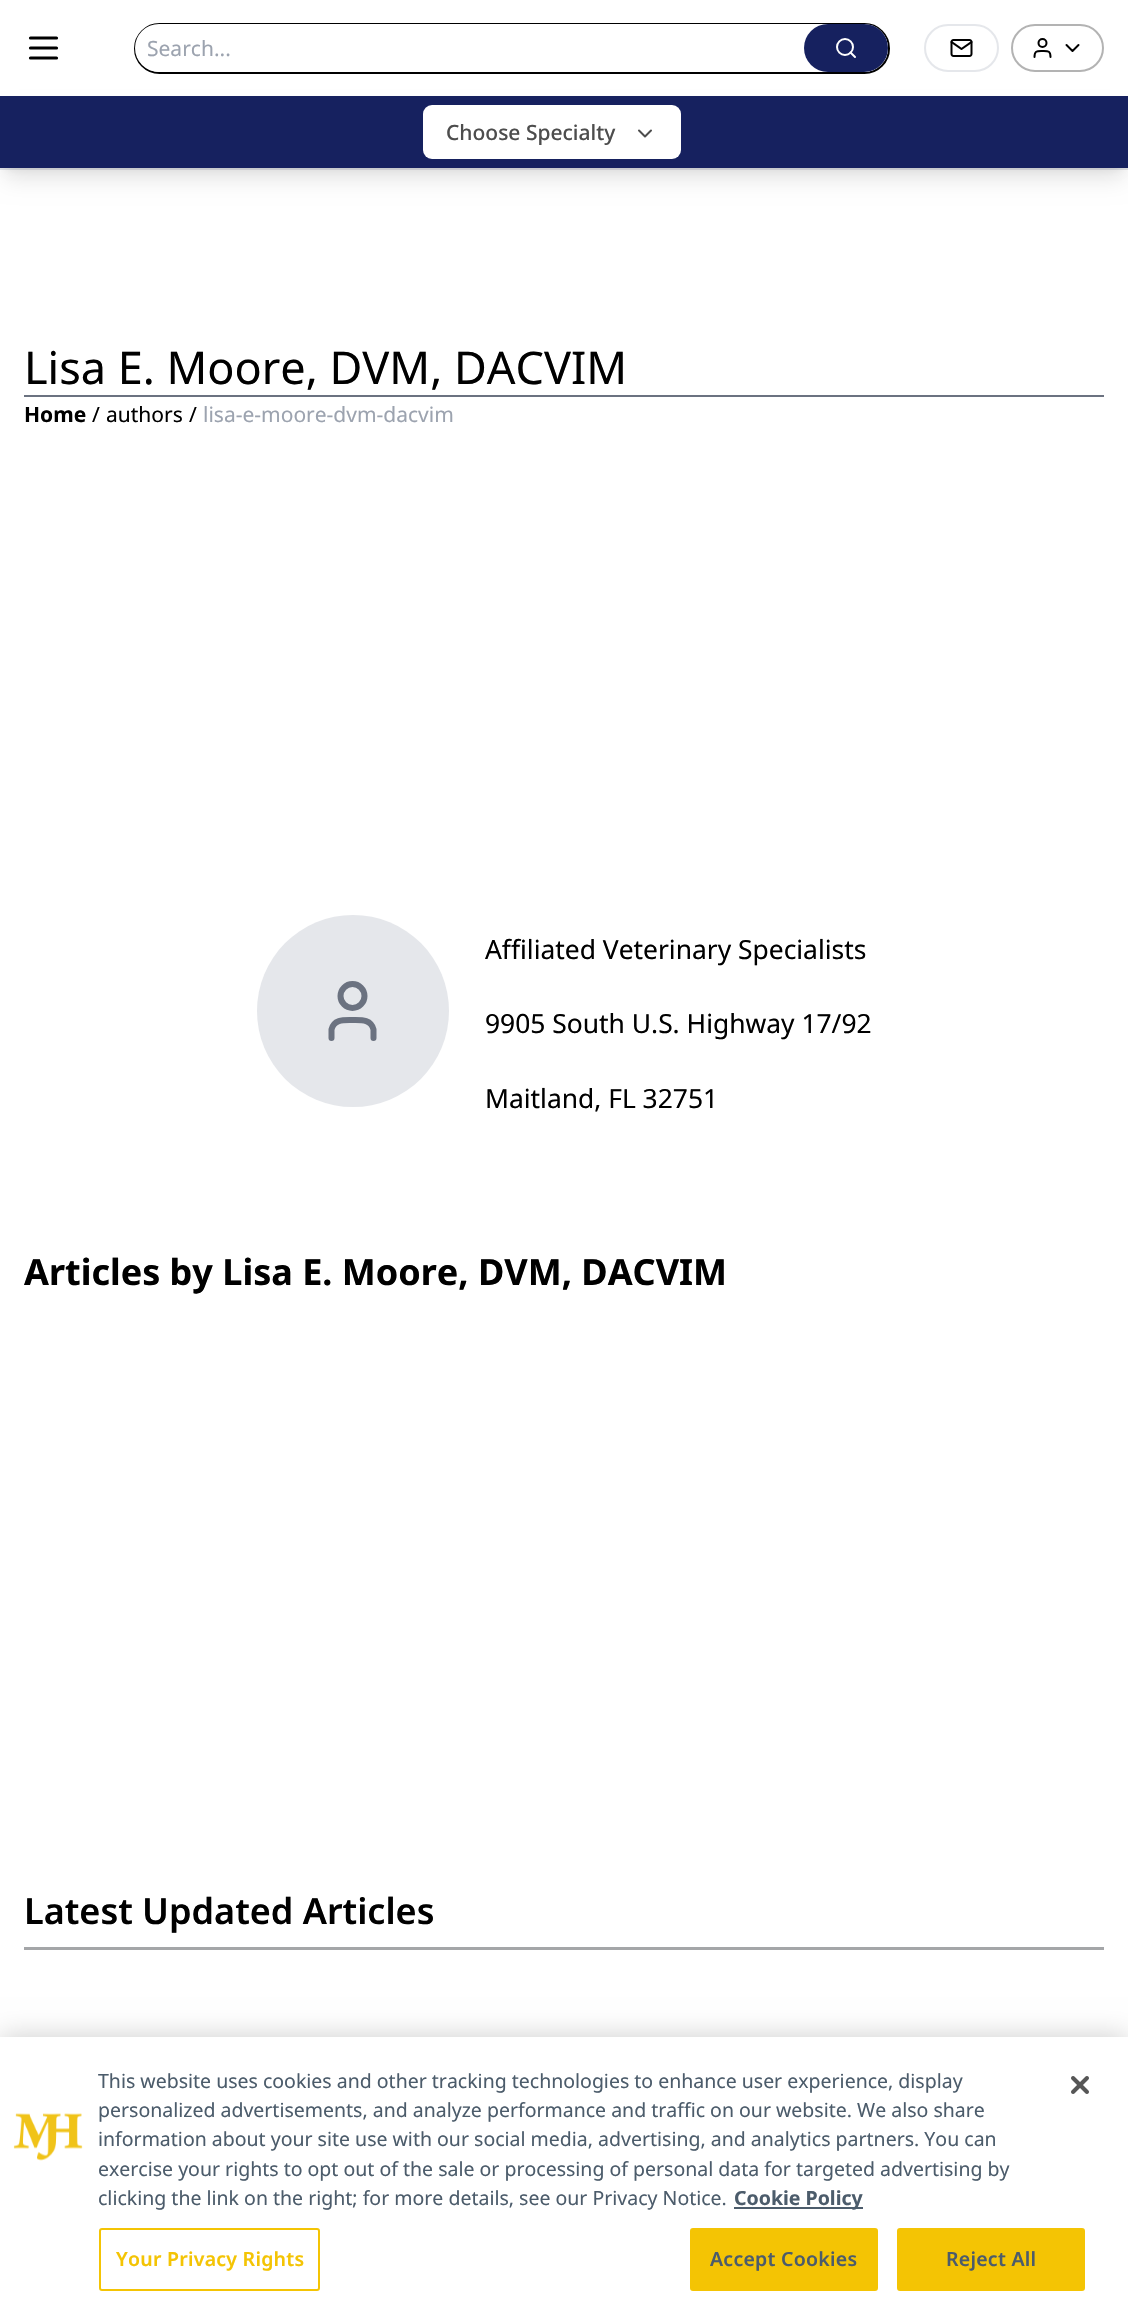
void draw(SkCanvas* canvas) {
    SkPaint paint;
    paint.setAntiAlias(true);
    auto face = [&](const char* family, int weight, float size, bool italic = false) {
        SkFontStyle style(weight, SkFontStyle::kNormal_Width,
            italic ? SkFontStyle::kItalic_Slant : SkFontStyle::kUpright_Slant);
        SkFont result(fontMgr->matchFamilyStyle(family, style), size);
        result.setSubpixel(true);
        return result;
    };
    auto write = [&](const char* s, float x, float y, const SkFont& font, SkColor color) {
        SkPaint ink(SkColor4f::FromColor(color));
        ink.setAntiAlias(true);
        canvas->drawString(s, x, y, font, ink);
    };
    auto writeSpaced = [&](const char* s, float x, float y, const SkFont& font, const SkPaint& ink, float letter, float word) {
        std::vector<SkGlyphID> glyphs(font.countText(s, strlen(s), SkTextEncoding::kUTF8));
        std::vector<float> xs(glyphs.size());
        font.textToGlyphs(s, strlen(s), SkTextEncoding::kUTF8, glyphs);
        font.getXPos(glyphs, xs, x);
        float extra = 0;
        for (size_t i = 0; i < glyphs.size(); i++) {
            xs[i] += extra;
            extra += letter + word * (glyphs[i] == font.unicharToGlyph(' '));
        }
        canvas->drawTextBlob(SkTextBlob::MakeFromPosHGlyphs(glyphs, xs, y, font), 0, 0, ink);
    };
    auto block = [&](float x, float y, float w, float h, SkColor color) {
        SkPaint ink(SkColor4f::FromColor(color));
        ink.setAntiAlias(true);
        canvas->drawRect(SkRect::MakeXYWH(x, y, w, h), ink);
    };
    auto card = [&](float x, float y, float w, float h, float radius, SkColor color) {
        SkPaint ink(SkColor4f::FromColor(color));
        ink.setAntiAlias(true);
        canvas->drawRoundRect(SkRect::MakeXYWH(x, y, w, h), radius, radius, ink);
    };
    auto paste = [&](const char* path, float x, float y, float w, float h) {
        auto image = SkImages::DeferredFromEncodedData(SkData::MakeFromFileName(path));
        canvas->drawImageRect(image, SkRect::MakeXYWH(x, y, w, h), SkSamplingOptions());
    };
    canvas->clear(SK_ColorWHITE);
    block(0, 168, 1128, 2, SkColorSetRGB(229, 231, 235));
    paint.setStyle(SkPaint::kStroke_Style);
    paint.setStrokeWidth(3.2f);
    paint.setStrokeCap(SkPaint::kRound_Cap);
    paint.setStrokeJoin(SkPaint::kRound_Join);
    paint.setColor(SK_ColorBLACK);
    canvas->drawPath(SkPathBuilder().moveTo(30.5f, 38).lineTo(56.5f, 38).moveTo(30.5f, 48).lineTo(56.5f, 48).moveTo(30.5f, 58).lineTo(56.5f, 58).detach(), paint);
    paint.setStrokeWidth(2);
    paint.setStrokeCap(SkPaint::kButt_Cap);
    paint.setStrokeJoin(SkPaint::kMiter_Join);
    canvas->drawRoundRect(SkRect::MakeXYWH(135, 24, 754, 49), 24.5f, 24.5f, paint);
    card(135, 24, 753, 48, 24, SK_ColorWHITE);
    auto kFont1 = face("Noto Sans", 400, 21);
    write("Search...", 147, 56, kFont1, SkColorSetRGB(156, 163, 175));
    card(804, 24, 84, 48, 24, SkColorSetRGB(22, 33, 95));
    paint.setColor(SK_ColorWHITE);
    canvas->drawCircle(845, 47, 8, paint);
    paint.setStrokeCap(SkPaint::kRound_Cap);
    paint.setStrokeJoin(SkPaint::kRound_Join);
    canvas->drawPath(SkPathBuilder().moveTo(855, 57).lineTo(850.5f, 52.5f).detach(), paint);
    paint.setStrokeCap(SkPaint::kButt_Cap);
    paint.setStrokeJoin(SkPaint::kMiter_Join);
    paint.setColor(SkColorSetRGB(229, 231, 235));
    canvas->drawRoundRect(SkRect::MakeXYWH(925, 25, 73, 46), 23, 23, paint);
    paste("pic1.png", 950, 39, 23, 18);
    paint.setColor(SkColorSetRGB(179, 179, 179));
    canvas->drawRoundRect(SkRect::MakeXYWH(1012, 25, 91, 46), 23, 23, paint);
    paint.setStrokeCap(SkPaint::kRound_Cap);
    paint.setStrokeJoin(SkPaint::kRound_Join);
    paint.setColor(SK_ColorBLACK);
    canvas->drawPath(SkPathBuilder().moveTo(1066.5f, 45).lineTo(1072.5f, 51).lineTo(1078.5f, 45).moveTo(1050.5f, 57).cubicTo(1050.5f, 50.5f, 1048, 51, 1042.5f, 51).cubicTo(1037, 51, 1034.5f, 50.5f, 1034.5f, 57).detach(), paint);
    paint.setStrokeCap(SkPaint::kButt_Cap);
    paint.setStrokeJoin(SkPaint::kMiter_Join);
    canvas->drawCircle(1042.5f, 43, 4, paint);
    paint.setStyle(SkPaint::kFill_Style);
    paint.setColor(SkColorSetARGB(26, 0, 0, 0));
    paint.setMaskFilter(SkMaskFilter::MakeBlur(kNormal_SkBlurStyle, 4.5f));
    canvas->drawRect(SkRect::MakeXYWH(6, 108, 1116, 60), paint);
    paint.setMaskFilter(nullptr);
    paint.setMaskFilter(SkMaskFilter::MakeBlur(kNormal_SkBlurStyle, 11));
    canvas->drawRect(SkRect::MakeXYWH(5, 116, 1119, 63), paint);
    paint.setMaskFilter(nullptr);
    block(0, 96, 1128, 72, SkColorSetRGB(22, 33, 95));
    card(423, 105, 258, 54, 9, SK_ColorWHITE);
    auto kFont2 = face("Noto Sans", 500, 21);
    write("Choose Specialty", 446, 140, kFont2, SkColorSetRGB(77, 77, 77));
    paint.setStyle(SkPaint::kStroke_Style);
    paint.setStrokeCap(SkPaint::kRound_Cap);
    paint.setStrokeJoin(SkPaint::kRound_Join);
    paint.setColor(SkColorSetRGB(77, 77, 77));
    canvas->drawPath(SkPathBuilder().moveTo(639, 130.5f).lineTo(645, 136.5f).lineTo(651, 130.5f).detach(), paint);
    auto kFont3 = face("Noto Sans", 400, 45);
    write("Lisa E. Moore, DVM, DACVIM", 24, 384, kFont3, SK_ColorBLACK);
    block(24, 395, 1080, 2, SkColorSetRGB(107, 114, 128));
    auto kFont4 = face("Noto Sans", 700, 21);
    write("Home", 24, 422, kFont4, SK_ColorBLACK);
    write("/", 92, 422, kFont1, SK_ColorBLACK);
    write("authors", 106, 422, kFont1, SK_ColorBLACK);
    write("/", 189, 422, kFont1, SK_ColorBLACK);
    write("lisa-e-moore-dvm-dacvim", 203, 422, kFont1, SkColorSetRGB(156, 163, 175));
    paint.setStyle(SkPaint::kFill_Style);
    paint.setColor(SkColorSetRGB(229, 231, 235));
    canvas->drawCircle(353, 1011, 96, paint);
    paint.setStyle(SkPaint::kStroke_Style);
    paint.setStrokeWidth(6);
    paint.setColor(SkColorSetRGB(107, 114, 128));
    canvas->drawPath(SkPathBuilder().moveTo(373.5f, 1038).lineTo(373.5f, 1029.5f).cubicTo(371, 1019, 361, 1020, 352.5f, 1020).cubicTo(344, 1020, 334, 1019, 331.5f, 1029.5f).lineTo(331.5f, 1038).detach(), paint);
    paint.setStrokeCap(SkPaint::kButt_Cap);
    paint.setStrokeJoin(SkPaint::kMiter_Join);
    canvas->drawCircle(352.5f, 996, 12, paint);
    auto kFont5 = face("Noto Sans", 400, 26.4f);
    write("Affiliated Veterinary Specialists", 485, 959, kFont5, SK_ColorBLACK);
    write("9905 South U.S. Highway 17/92", 485, 1033, kFont5, SK_ColorBLACK);
    write("Maitland, FL 32751", 485, 1108, kFont5, SK_ColorBLACK);
    auto kFont6 = face("Noto Sans", 700, 36);
    write("Articles by Lisa E. Moore, DVM, DACVIM", 24, 1285, kFont6, SK_ColorBLACK);
    block(24, 1947, 1080, 3, SkColorSetRGB(164, 166, 168));
    auto kFont7 = face("Noto Sans", 600, 36);
    write("Latest Updated Articles", 24, 1924, kFont7, SK_ColorBLACK);
    paint.setStyle(SkPaint::kFill_Style);
    paint.setColor(SkColorSetARGB(51, 0, 0, 0));
    paint.setMaskFilter(SkMaskFilter::MakeBlur(kNormal_SkBlurStyle, 13.5f));
    canvas->drawRect(SkRect::MakeXYWH(0, 2037, 1128, 285), paint);
    paint.setMaskFilter(nullptr);
    block(0, 2037, 1128, 285, SK_ColorWHITE);
    paste("pic2.png", 13, 2113, 70, 48);
    auto kFont8 = face("Noto Sans", 400, 19.5f);
    write("This website uses cookies and other tracking technologies to enhance user experience, display", 98, 2088, kFont8, SkColorSetRGB(76, 92, 107));
    write("personalized advertisements, and analyze performance and traffic on our website. We also share", 98, 2117, kFont8, SkColorSetRGB(76, 92, 107));
    write("information about your site use with our social media, advertising, and analytics partners. You can", 98, 2146, kFont8, SkColorSetRGB(76, 92, 107));
    write("exercise your rights to opt out of the sale or processing of personal data for targeted advertising by", 98, 2176, kFont8, SkColorSetRGB(76, 92, 107));
    write("clicking the link on the right; for more details, see our Privacy Notice.", 98, 2205, kFont8, SkColorSetRGB(76, 92, 107));
    block(734, 2207, 129, 2, SkColorSetRGB(76, 92, 107));
    auto kFont9 = face("Noto Sans", 700, 19.5f);
    write("Cookie Policy", 734, 2205, kFont9, SkColorSetRGB(76, 92, 107));
    paint.setStyle(SkPaint::kStroke_Style);
    paint.setStrokeWidth(2);
    paint.setColor(SkColorSetRGB(244, 196, 4));
    canvas->drawRoundRect(SkRect::MakeXYWH(100, 2229, 219, 61), 2, 2, paint);
    auto kFont10 = face("Noto Sans", 600, 19.5f);
    paint.setStyle(SkPaint::kFill_Style);
    writeSpaced("Your Privacy Rights", 116, 2266, kFont10, paint, 0.25f, 0);
    canvas->drawRoundRect(SkRect::MakeXYWH(691, 2229, 186, 61), 2, 2, paint);
    paint.setStyle(SkPaint::kStroke_Style);
    canvas->drawRoundRect(SkRect::MakeXYWH(691, 2229, 186, 61), 2, 2, paint);
    paint.setStyle(SkPaint::kFill_Style);
    paint.setColor(SkColorSetRGB(76, 92, 107));
    writeSpaced("Accept Cookies", 710, 2266, kFont10, paint, 0.25f, 0);
    paint.setColor(SkColorSetRGB(244, 196, 4));
    canvas->drawRoundRect(SkRect::MakeXYWH(898, 2229, 186, 61), 2, 2, paint);
    paint.setStyle(SkPaint::kStroke_Style);
    canvas->drawRoundRect(SkRect::MakeXYWH(898, 2229, 186, 61), 2, 2, paint);
    paint.setStyle(SkPaint::kFill_Style);
    paint.setColor(SkColorSetRGB(76, 92, 107));
    writeSpaced("Reject All", 946, 2266, kFont10, paint, 0.25f, 0);
    paste("pic3.png", 1071, 2076, 18, 18);
}
